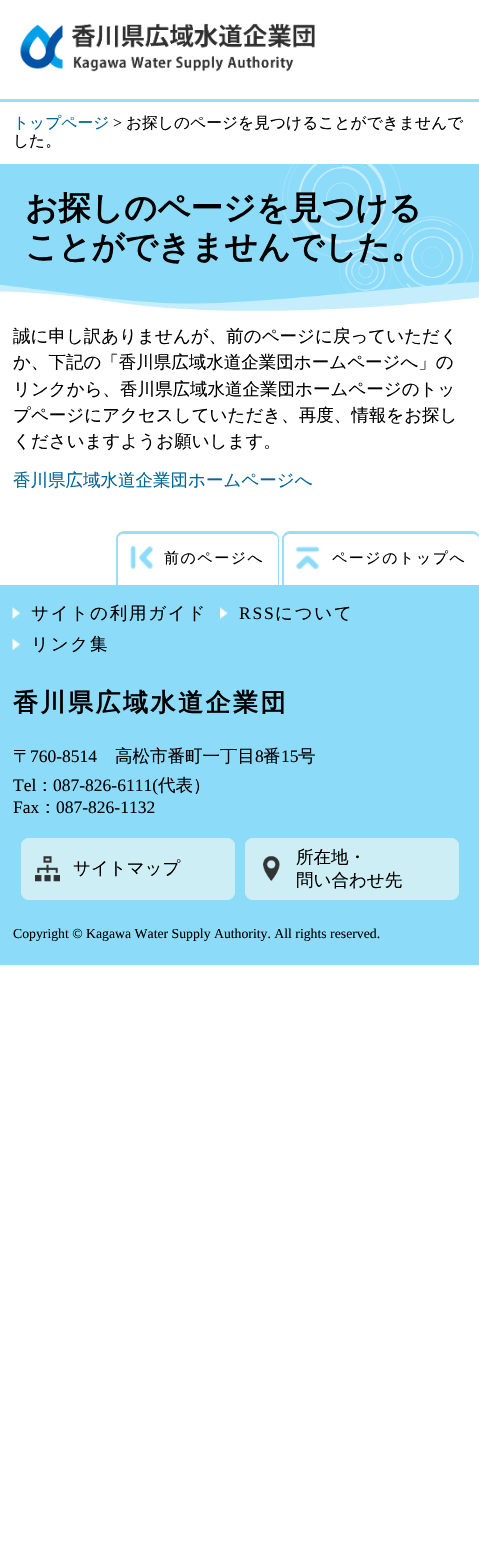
void draw(SkCanvas* canvas) {
    SkPaint paint;
    paint.setAntiAlias(true);
    auto face = [&](const char* family, int weight, float size, bool italic = false) {
        SkFontStyle style(weight, SkFontStyle::kNormal_Width,
            italic ? SkFontStyle::kItalic_Slant : SkFontStyle::kUpright_Slant);
        SkFont result(fontMgr->matchFamilyStyle(family, style), size);
        result.setSubpixel(true);
        return result;
    };
    auto write = [&](const char* s, float x, float y, const SkFont& font, SkColor color) {
        SkPaint ink(SkColor4f::FromColor(color));
        ink.setAntiAlias(true);
        canvas->drawString(s, x, y, font, ink);
    };
    auto writeSpaced = [&](const char* s, float x, float y, const SkFont& font, const SkPaint& ink, float letter, float word) {
        std::vector<SkGlyphID> glyphs(font.countText(s, strlen(s), SkTextEncoding::kUTF8));
        std::vector<float> xs(glyphs.size());
        font.textToGlyphs(s, strlen(s), SkTextEncoding::kUTF8, glyphs);
        font.getXPos(glyphs, xs, x);
        float extra = 0;
        for (size_t i = 0; i < glyphs.size(); i++) {
            xs[i] += extra;
            extra += letter + word * (glyphs[i] == font.unicharToGlyph(' '));
        }
        canvas->drawTextBlob(SkTextBlob::MakeFromPosHGlyphs(glyphs, xs, y, font), 0, 0, ink);
    };
    auto block = [&](float x, float y, float w, float h, SkColor color) {
        SkPaint ink(SkColor4f::FromColor(color));
        ink.setAntiAlias(true);
        canvas->drawRect(SkRect::MakeXYWH(x, y, w, h), ink);
    };
    auto card = [&](float x, float y, float w, float h, float radius, SkColor color) {
        SkPaint ink(SkColor4f::FromColor(color));
        ink.setAntiAlias(true);
        canvas->drawRoundRect(SkRect::MakeXYWH(x, y, w, h), radius, radius, ink);
    };
    auto paste = [&](const char* path, float x, float y, float w, float h) {
        auto image = SkImages::DeferredFromEncodedData(SkData::MakeFromFileName(path));
        canvas->drawImageRect(image, SkRect::MakeXYWH(x, y, w, h), SkSamplingOptions());
    };
    canvas->clear(SK_ColorWHITE);
    paste("pic1.png", 20, 23, 295, 49);
    block(0, 99, 479, 3, SkColorSetRGB(153, 221, 250));
    auto kFont1 = face("WenQuanYi Zen Hei", 500, 15.75f);
    write("トップページ", 13, 128, kFont1, SkColorSetRGB(0, 102, 153));
    auto kFont2 = face("Liberation Serif", 400, 15.75f);
    write(">", 113, 128, kFont2, SK_ColorBLACK);
    write("お探しのページを見つけることができませんで", 126, 128, kFont1, SK_ColorBLACK);
    write("した。", 13, 146, kFont1, SK_ColorBLACK);
    block(0, 164, 479, 117, SkColorSetRGB(140, 219, 249));
    paste("pic2.png", 0, 281, 479, 30);
    paste("pic3.png", 282, 164, 191, 129);
    auto kFont3 = face("WenQuanYi Zen Hei", 700, 32.5f);
    write("お探しのページを見つける", 25, 219, kFont3, SK_ColorBLACK);
    write("ことができませんでした。", 25, 258, kFont3, SK_ColorBLACK);
    auto kFont4 = face("WenQuanYi Zen Hei", 500, 17.5f);
    write("誠に申し訳ありませんが、前のページに戻っていただく", 13, 342, kFont4, SK_ColorBLACK);
    write("か、下記の「香川県広域水道企業団ホームページへ」の", 13, 368, kFont4, SK_ColorBLACK);
    write("リンクから、香川県広域水道企業団ホームページのトッ", 13, 395, kFont4, SK_ColorBLACK);
    write("プページにアクセスしていただき、再度、情報をお探し", 13, 421, kFont4, SK_ColorBLACK);
    write("くださいますようお願いします。", 13, 447, kFont4, SK_ColorBLACK);
    write("香川県広域水道企業団ホームページへ", 13, 486, kFont4, SkColorSetRGB(0, 102, 153));
    paint.setColor(SkColorSetRGB(153, 221, 250));
    canvas->drawPath(SkPathBuilder(SkPathFillType::kEvenOdd).moveTo(124, 531).lineTo(271, 531).cubicTo(275, 531, 279, 535, 279, 539).lineTo(279, 585).lineTo(116, 585).lineTo(116, 539).cubicTo(116, 535, 120, 531, 124, 531).close().moveTo(124, 534).lineTo(271, 534).cubicTo(275, 534, 278, 536, 278, 539).lineTo(278, 585).lineTo(118, 585).lineTo(118, 539).cubicTo(118, 536, 120, 534, 124, 534).close().detach(), paint);
    paste("pic4.png", 130, 546, 23, 23);
    auto kFont5 = face("WenQuanYi Zen Hei", 500, 15);
    paint.setColor(SK_ColorBLACK);
    writeSpaced("前のページへ", 164, 563, kFont5, paint, 1.5f, 0);
    paint.setColor(SkColorSetRGB(153, 221, 250));
    canvas->drawPath(SkPathBuilder(SkPathFillType::kEvenOdd).moveTo(290, 531).lineTo(472, 531).cubicTo(477, 531, 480, 535, 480, 539).lineTo(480, 585).lineTo(282, 585).lineTo(282, 539).cubicTo(282, 535, 286, 531, 290, 531).close().moveTo(290, 534).lineTo(472, 534).cubicTo(476, 534, 479, 536, 479, 539).lineTo(479, 585).lineTo(284, 585).lineTo(284, 539).cubicTo(284, 536, 287, 534, 290, 534).close().detach(), paint);
    paste("pic5.png", 296, 546, 23, 23);
    paint.setColor(SK_ColorBLACK);
    writeSpaced("ページのトップへ", 332, 563, kFont5, paint, 1.5f, 0);
    block(0, 585, 479, 380, SkColorSetRGB(140, 219, 249));
    paste("pic6.png", 12, 607, 8, 12);
    writeSpaced("サイトの利用ガイド", 31, 619, kFont4, paint, 1.75f, 0);
    paste("pic7.png", 220, 607, 8, 12);
    auto kFont6 = face("Liberation Serif", 400, 17.5f);
    writeSpaced("RSS", 239, 619, kFont6, paint, 1.75f, 0);
    writeSpaced("について", 275, 619, kFont4, paint, 1.75f, 0);
    paste("pic8.png", 12, 638, 8, 12);
    writeSpaced("リンク集", 31, 650, kFont4, paint, 1.75f, 0);
    auto kFont7 = face("WenQuanYi Zen Hei", 700, 25);
    writeSpaced("香川県広域水道企業団", 13, 711, kFont7, paint, 2.5f, 0);
    write("〒", 13, 762, kFont4, SK_ColorBLACK);
    write("760-8514", 30, 762, kFont6, SK_ColorBLACK);
    write("高松市番町一丁目", 115, 762, kFont4, SK_ColorBLACK);
    write("8", 255, 762, kFont6, SK_ColorBLACK);
    write("番", 263, 762, kFont4, SK_ColorBLACK);
    write("15", 281, 762, kFont6, SK_ColorBLACK);
    write("号", 298, 762, kFont4, SK_ColorBLACK);
    write("Tel", 13, 791, kFont6, SK_ColorBLACK);
    write("：", 36, 791, kFont4, SK_ColorBLACK);
    write("087-826-6111(", 53, 791, kFont6, SK_ColorBLACK);
    write("代表）", 158, 791, kFont4, SK_ColorBLACK);
    write("Fax", 13, 813, kFont6, SK_ColorBLACK);
    write("：", 39, 813, kFont4, SK_ColorBLACK);
    write("087-826-1132", 56, 813, kFont6, SK_ColorBLACK);
    card(21, 838, 214, 62, 8, SkColorSetRGB(205, 238, 245));
    paste("pic9.png", 35, 856, 25, 26);
    paint.setStyle(SkPaint::kStroke_Style);
    paint.setStrokeWidth(1);
    paint.setColor(SkColorSetRGB(205, 238, 245));
    canvas->drawRoundRect(SkRect::MakeXYWH(21.5f, 838.5f, 213, 61), 7.5f, 7.5f, paint);
    write("サイトマップ", 73, 874, kFont4, SK_ColorBLACK);
    card(245, 838, 214, 62, 8, SkColorSetRGB(205, 238, 245));
    paste("pic10.png", 263, 856, 17, 26);
    canvas->drawRoundRect(SkRect::MakeXYWH(245.5f, 838.5f, 213, 61), 7.5f, 7.5f, paint);
    write("所在地・", 296, 863, kFont4, SK_ColorBLACK);
    write("問い合わせ先", 296, 886, kFont4, SK_ColorBLACK);
    auto kFont8 = face("Liberation Serif", 400, 13.75f);
    write("Copyright © Kagawa Water Supply Authority. All rights reserved.", 13, 938, kFont8, SK_ColorBLACK);
}
